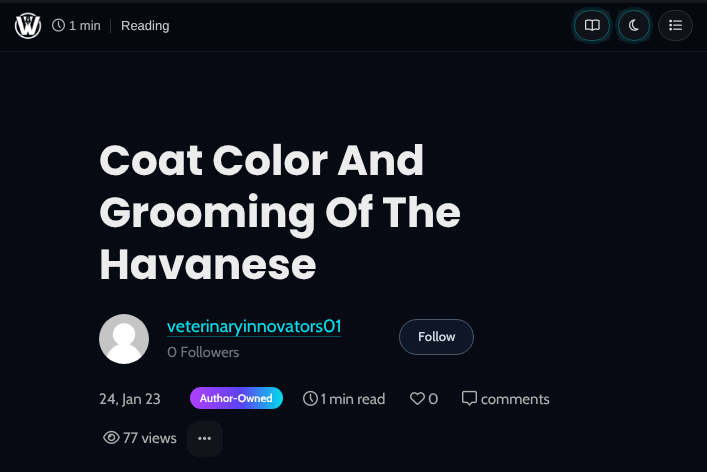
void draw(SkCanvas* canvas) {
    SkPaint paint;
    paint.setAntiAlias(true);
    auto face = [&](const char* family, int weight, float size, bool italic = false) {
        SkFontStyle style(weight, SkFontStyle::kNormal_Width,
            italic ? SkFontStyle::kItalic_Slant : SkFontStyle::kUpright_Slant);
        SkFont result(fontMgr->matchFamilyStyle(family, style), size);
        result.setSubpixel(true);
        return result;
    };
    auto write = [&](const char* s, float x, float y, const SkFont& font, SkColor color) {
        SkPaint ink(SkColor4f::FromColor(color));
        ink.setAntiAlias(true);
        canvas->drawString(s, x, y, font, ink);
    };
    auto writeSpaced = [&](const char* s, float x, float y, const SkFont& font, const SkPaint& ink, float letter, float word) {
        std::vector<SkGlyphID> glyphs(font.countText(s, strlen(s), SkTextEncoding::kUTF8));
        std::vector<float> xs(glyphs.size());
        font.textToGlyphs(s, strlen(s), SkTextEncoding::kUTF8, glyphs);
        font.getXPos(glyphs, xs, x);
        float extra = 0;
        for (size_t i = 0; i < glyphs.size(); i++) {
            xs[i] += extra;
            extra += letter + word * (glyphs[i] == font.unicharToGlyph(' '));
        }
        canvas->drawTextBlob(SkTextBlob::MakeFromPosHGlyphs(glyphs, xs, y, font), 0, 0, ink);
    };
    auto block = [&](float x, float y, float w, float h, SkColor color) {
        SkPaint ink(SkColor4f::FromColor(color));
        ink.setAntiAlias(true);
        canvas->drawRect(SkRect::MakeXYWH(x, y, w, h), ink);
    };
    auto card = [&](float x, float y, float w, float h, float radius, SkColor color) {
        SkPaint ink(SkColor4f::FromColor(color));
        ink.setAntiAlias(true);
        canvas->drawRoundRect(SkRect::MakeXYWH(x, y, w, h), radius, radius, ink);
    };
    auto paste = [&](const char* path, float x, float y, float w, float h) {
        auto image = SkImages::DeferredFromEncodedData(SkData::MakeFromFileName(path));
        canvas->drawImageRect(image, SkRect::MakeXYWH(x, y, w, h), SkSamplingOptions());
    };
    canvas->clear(SkColorSetRGB(7, 10, 18));
    block(0, 0, 707, 3, SkColorSetRGB(21, 23, 29));
    block(0, 3, 707, 48, SkColorSetRGB(6, 8, 15));
    block(0, 51, 707, 1, SkColorSetRGB(21, 23, 29));
    paste("pic1.png", 14, 12, 28, 28);
    paste("pic2.png", 52, 18, 13, 14);
    auto kFont1 = face("Liberation Sans", 400, 13);
    write("1 min", 69, 30, kFont1, SkColorSetRGB(180, 181, 183));
    block(110, 19, 1, 14, SkColorSetRGB(51, 52, 58));
    write("Reading", 121, 30, kFont1, SkColorSetRGB(200, 201, 202));
    paint.setStyle(SkPaint::kStroke_Style);
    paint.setStrokeWidth(3);
    paint.setColor(SkColorSetRGB(5, 29, 37));
    canvas->drawRoundRect(SkRect::MakeXYWH(572.5f, 8.5f, 39, 34), 17, 17, paint);
    block(574, 10, 36, 31, SkColorSetARGB(10, 255, 255, 255));
    paint.setStrokeWidth(1);
    paint.setColor(SkColorSetARGB(89, 0, 221, 235));
    canvas->drawRoundRect(SkRect::MakeXYWH(574.5f, 10.5f, 35, 30), 15, 15, paint);
    paste("pic3.png", 585, 19, 15, 12);
    paint.setStrokeWidth(3);
    paint.setColor(SkColorSetRGB(5, 29, 37));
    canvas->drawRoundRect(SkRect::MakeXYWH(616.5f, 8.5f, 35, 34), 17, 17, paint);
    block(618, 10, 32, 31, SkColorSetARGB(10, 255, 255, 255));
    paint.setStrokeWidth(1);
    paint.setColor(SkColorSetARGB(89, 0, 221, 235));
    canvas->drawRoundRect(SkRect::MakeXYWH(618.5f, 10.5f, 31, 30), 15, 15, paint);
    paste("pic4.png", 629, 19, 10, 12);
    card(658, 10, 35, 31, 15.5f, SkColorSetRGB(16, 18, 25));
    paint.setColor(SkColorSetARGB(26, 255, 255, 255));
    canvas->drawRoundRect(SkRect::MakeXYWH(658.5f, 10.5f, 34, 30), 15, 15, paint);
    paste("pic5.png", 669, 19, 13, 12);
    auto kFont2 = face("Poppins", 700, 42);
    write("Coat Color And", 99, 175, kFont2, SkColorSetRGB(236, 236, 236));
    write("Grooming Of The", 99, 227, kFont2, SkColorSetRGB(236, 236, 236));
    write("Havanese", 99, 279, kFont2, SkColorSetRGB(236, 236, 236));
    paste("pic6.png", 99, 314, 50, 50);
    block(167, 336, 174, 1, SkColorSetRGB(5, 84, 94));
    auto kFont3 = face("Cabin", 400, 17.9f);
    write("veterinaryinnovators01", 167, 332, kFont3, SkColorSetRGB(0, 221, 235));
    auto kFont4 = face("Cabin", 400, 14.5f);
    write("0 Followers", 167, 357, kFont4, SkColorSetRGB(108, 117, 125));
    card(399, 319, 75, 36, 18, SkColorSetRGB(14, 22, 40));
    paint.setColor(SkColorSetARGB(115, 148, 163, 184));
    canvas->drawRoundRect(SkRect::MakeXYWH(399.5f, 319.5f, 74, 35), 17.5f, 17.5f, paint);
    auto kFont5 = face("Cabin", 600, 13);
    write("Follow", 418, 341, kFont5, SkColorSetRGB(209, 215, 224));
    auto kFont6 = face("Cabin", 400, 15);
    write("24, Jan 23", 99, 404, kFont6, SkColorSetRGB(172, 173, 175));
    block(170, 400, 2, 2, SkColorSetRGB(6, 8, 15));
    paint.setStyle(SkPaint::kFill_Style);
    {
        const SkColor colors[] = {SkColorSetRGB(175, 64, 255), SkColorSetRGB(91, 66, 243), SkColorSetRGB(0, 221, 235)};
        const float stops[] = {0, 0.55f, 1};
        const SkPoint ends[] = {{190, 398}, {283, 398}};
        paint.setShader(SkGradientShader::MakeLinear(ends, colors, stops, 3, SkTileMode::kClamp));
        paint.setAlpha(255);
    }
    canvas->drawRoundRect(SkRect::MakeXYWH(190, 387, 93, 22), 11, 11, paint);
    auto kFont7 = face("Cabin", 600, 11);
    paint.setShader(nullptr);
    paint.setColor(SK_ColorWHITE);
    writeSpaced("Author-Owned", 200, 402, kFont7, paint, 0.1f, 0);
    block(293, 400, 2, 2, SkColorSetRGB(6, 8, 15));
    paste("pic7.png", 303, 390, 15, 16);
    write("1 min read", 321, 404, kFont6, SkColorSetRGB(172, 173, 175));
    block(396, 400, 2, 2, SkColorSetRGB(6, 8, 15));
    paste("pic8.png", 410, 392, 15, 13);
    write("0", 428, 404, kFont6, SkColorSetRGB(172, 173, 175));
    block(448, 400, 2, 2, SkColorSetRGB(6, 8, 15));
    paste("pic9.png", 462, 390, 15, 16);
    write("comments", 481, 404, kFont6, SkColorSetRGB(172, 173, 175));
    block(560, 400, 2, 2, SkColorSetRGB(6, 8, 15));
    paste("pic10.png", 103, 430, 17, 14);
    write("77 views", 123, 443, kFont6, SkColorSetRGB(172, 173, 175));
    card(187, 421, 36, 36, 12, SkColorSetRGB(17, 20, 27));
    paste("pic11.png", 198, 436, 13, 4);
}
